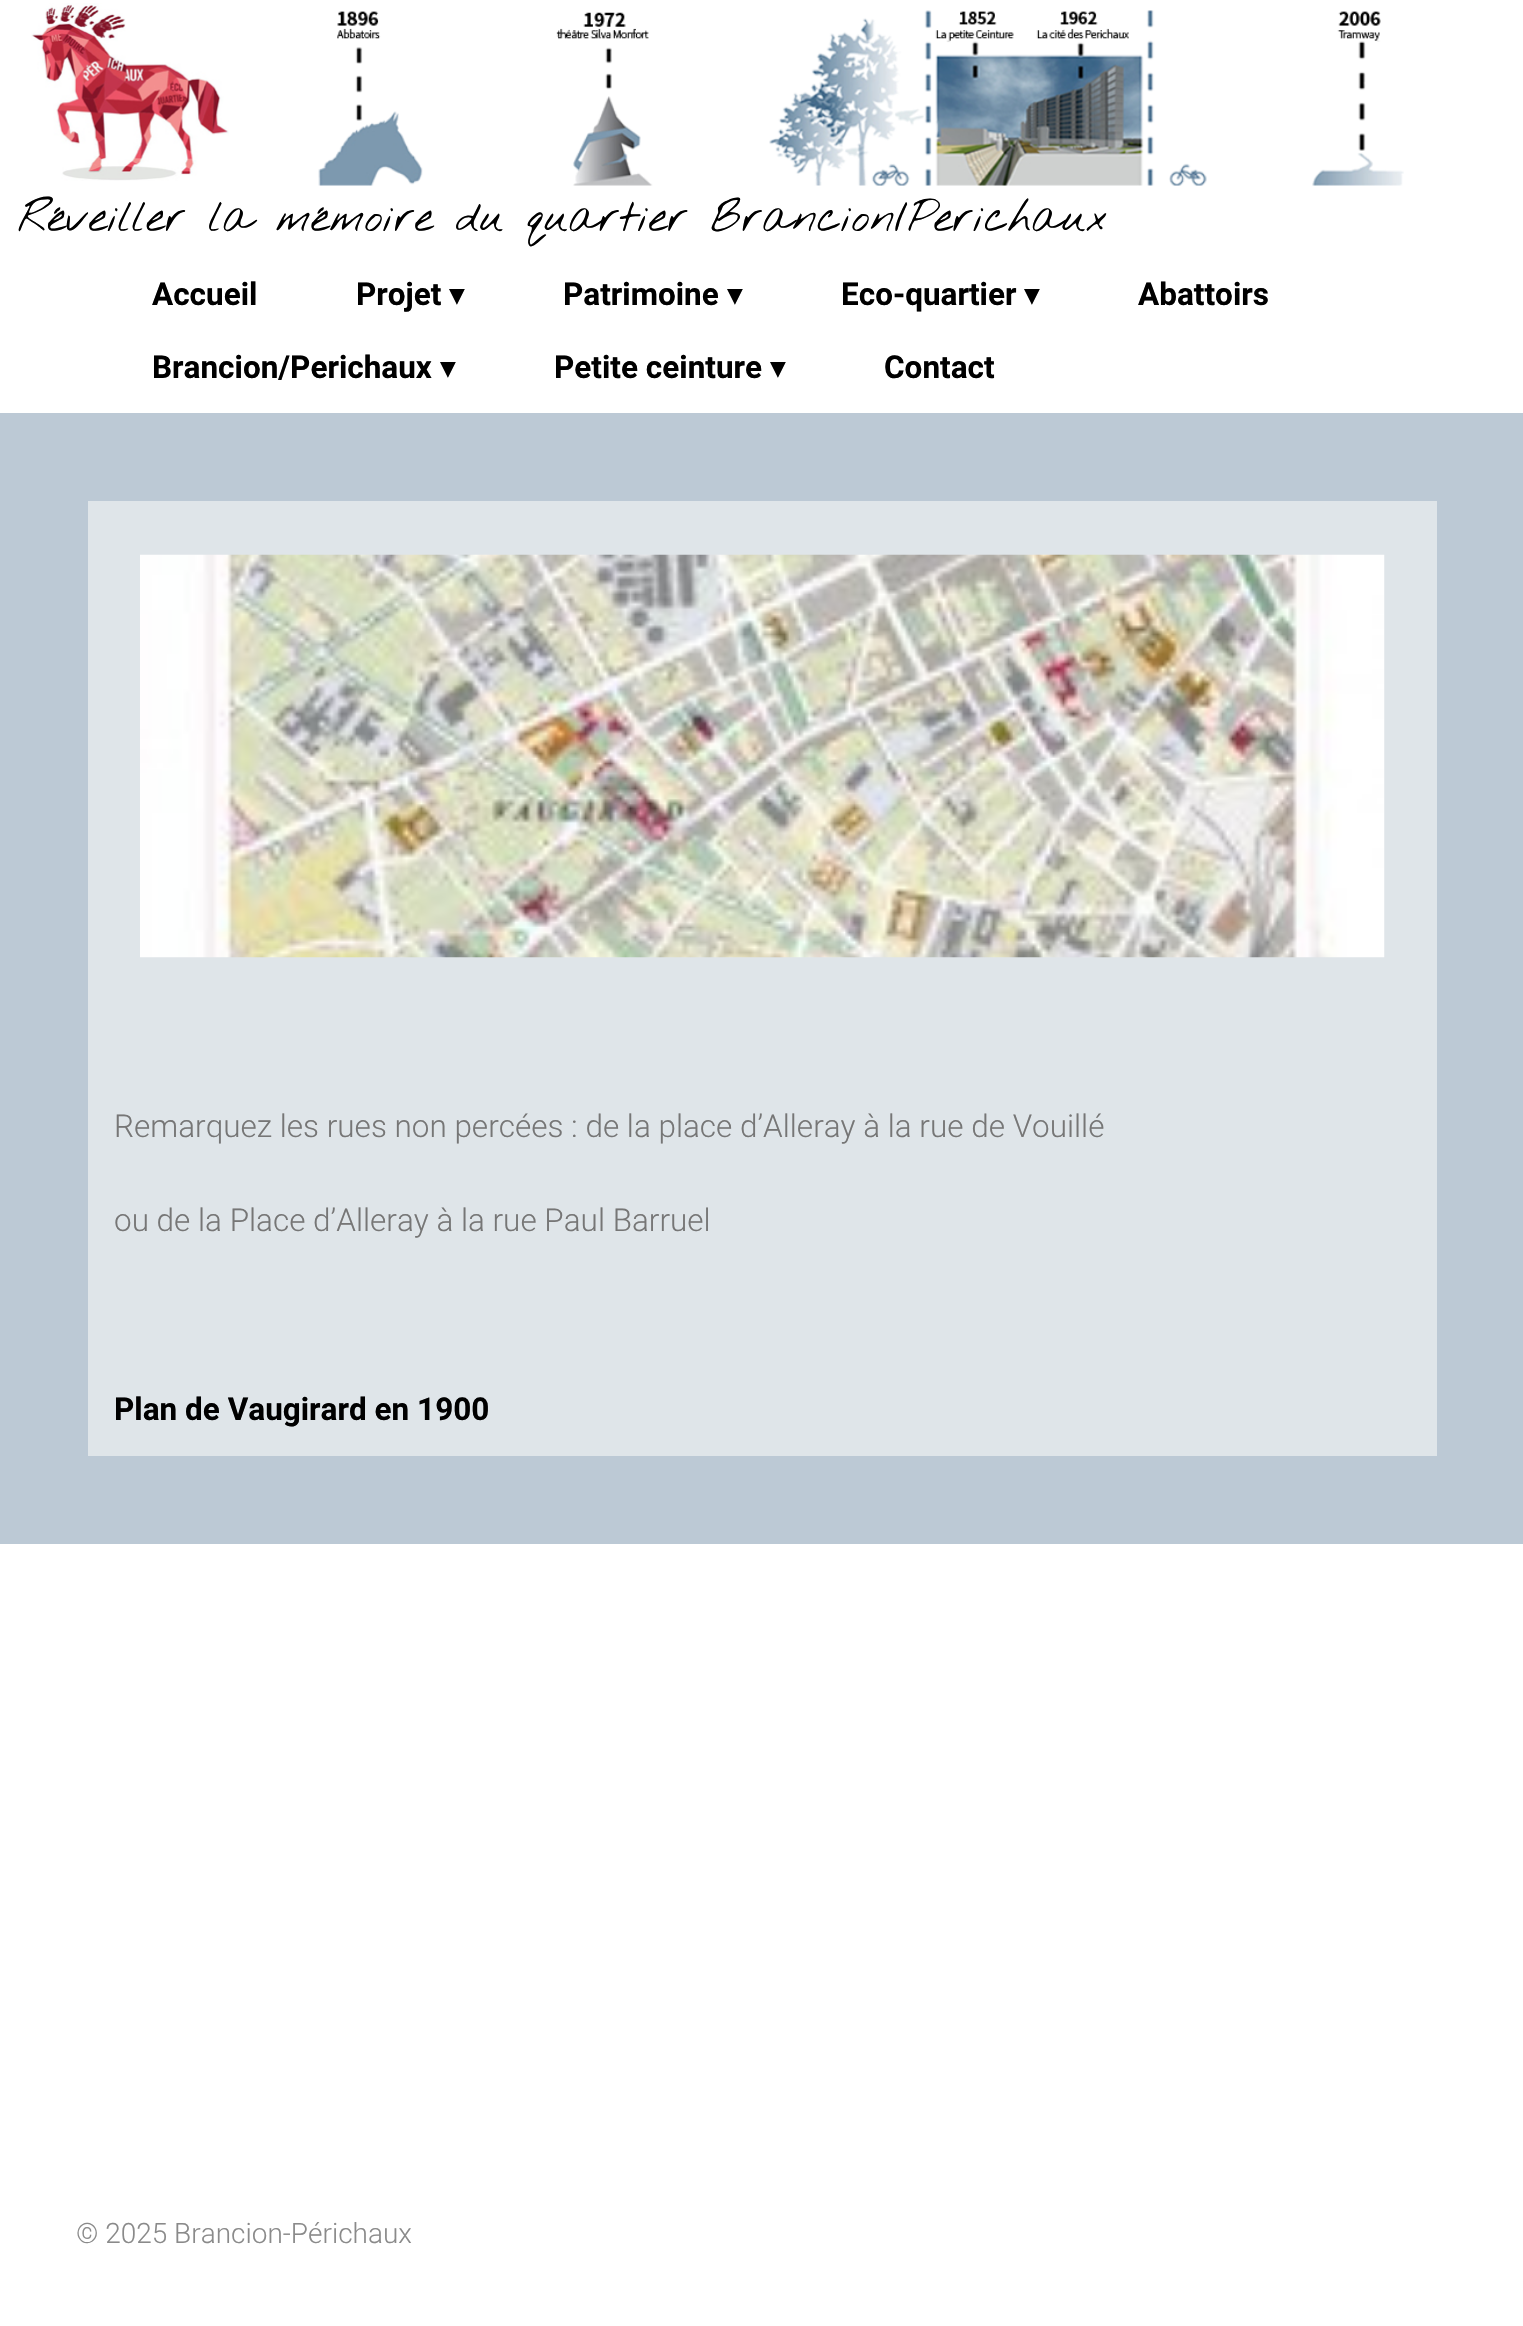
void draw(SkCanvas* canvas) {
    SkPaint paint;
    paint.setAntiAlias(true);
    auto face = [&](const char* family, int weight, float size, bool italic = false) {
        SkFontStyle style(weight, SkFontStyle::kNormal_Width,
            italic ? SkFontStyle::kItalic_Slant : SkFontStyle::kUpright_Slant);
        SkFont result(fontMgr->matchFamilyStyle(family, style), size);
        result.setSubpixel(true);
        return result;
    };
    auto write = [&](const char* s, float x, float y, const SkFont& font, SkColor color) {
        SkPaint ink(SkColor4f::FromColor(color));
        ink.setAntiAlias(true);
        canvas->drawString(s, x, y, font, ink);
    };
    auto block = [&](float x, float y, float w, float h, SkColor color) {
        SkPaint ink(SkColor4f::FromColor(color));
        ink.setAntiAlias(true);
        canvas->drawRect(SkRect::MakeXYWH(x, y, w, h), ink);
    };
    auto paste = [&](const char* path, float x, float y, float w, float h) {
        auto image = SkImages::DeferredFromEncodedData(SkData::MakeFromFileName(path));
        canvas->drawImageRect(image, SkRect::MakeXYWH(x, y, w, h), SkSamplingOptions());
    };
    canvas->clear(SK_ColorWHITE);
    paste("pic1.png", 31, 3, 198, 178);
    paste("pic2.png", 318, 10, 1086, 176);
    auto kFont1 = face("Nothing You Could Do", 100, 43.75f);
    write("Réveiller la mémoire du quartier Brancion/Perichaux", 18, 231, kFont1, SK_ColorBLACK);
    auto kFont2 = face("Roboto", 700, 31.5f);
    write("Accueil", 152, 305, kFont2, SK_ColorBLACK);
    write("Projet", 356, 305, kFont2, SK_ColorBLACK);
    auto kFont3 = face("DejaVu Sans", 400, 31.5f);
    write("▾", 449, 305, kFont3, SK_ColorBLACK);
    write("Patrimoine", 563, 305, kFont2, SK_ColorBLACK);
    write("▾", 727, 305, kFont3, SK_ColorBLACK);
    write("Eco-quartier", 841, 305, kFont2, SK_ColorBLACK);
    write("▾", 1024, 305, kFont3, SK_ColorBLACK);
    write("Abattoirs", 1138, 305, kFont2, SK_ColorBLACK);
    write("Brancion/Perichaux", 152, 378, kFont2, SK_ColorBLACK);
    write("▾", 440, 378, kFont3, SK_ColorBLACK);
    write("Petite ceinture", 554, 378, kFont2, SK_ColorBLACK);
    write("▾", 770, 378, kFont3, SK_ColorBLACK);
    write("Contact", 884, 378, kFont2, SK_ColorBLACK);
    block(0, 413, 1523, 1131, SkColorSetRGB(188, 201, 213));
    block(88, 501, 1349, 955, SkColorSetRGB(223, 229, 233));
    paste("pic3.png", 140, 554, 1245, 404);
    auto kFont4 = face("Roboto", 300, 31.5f);
    write("Remarquez les rues non percées : de la place d’Alleray à la rue de Vouillé", 114, 1137, kFont4, SkColorSetRGB(118, 118, 118));
    write("ou de la Place d’Alleray à la rue Paul Barruel", 114, 1231, kFont4, SkColorSetRGB(118, 118, 118));
    write("Plan de Vaugirard en 1900", 114, 1420, kFont2, SK_ColorBLACK);
    auto kFont5 = face("Roboto", 300, 28);
    write("© 2025 Brancion-Périchaux", 76, 2243, kFont5, SkColorSetRGB(138, 138, 138));
}
